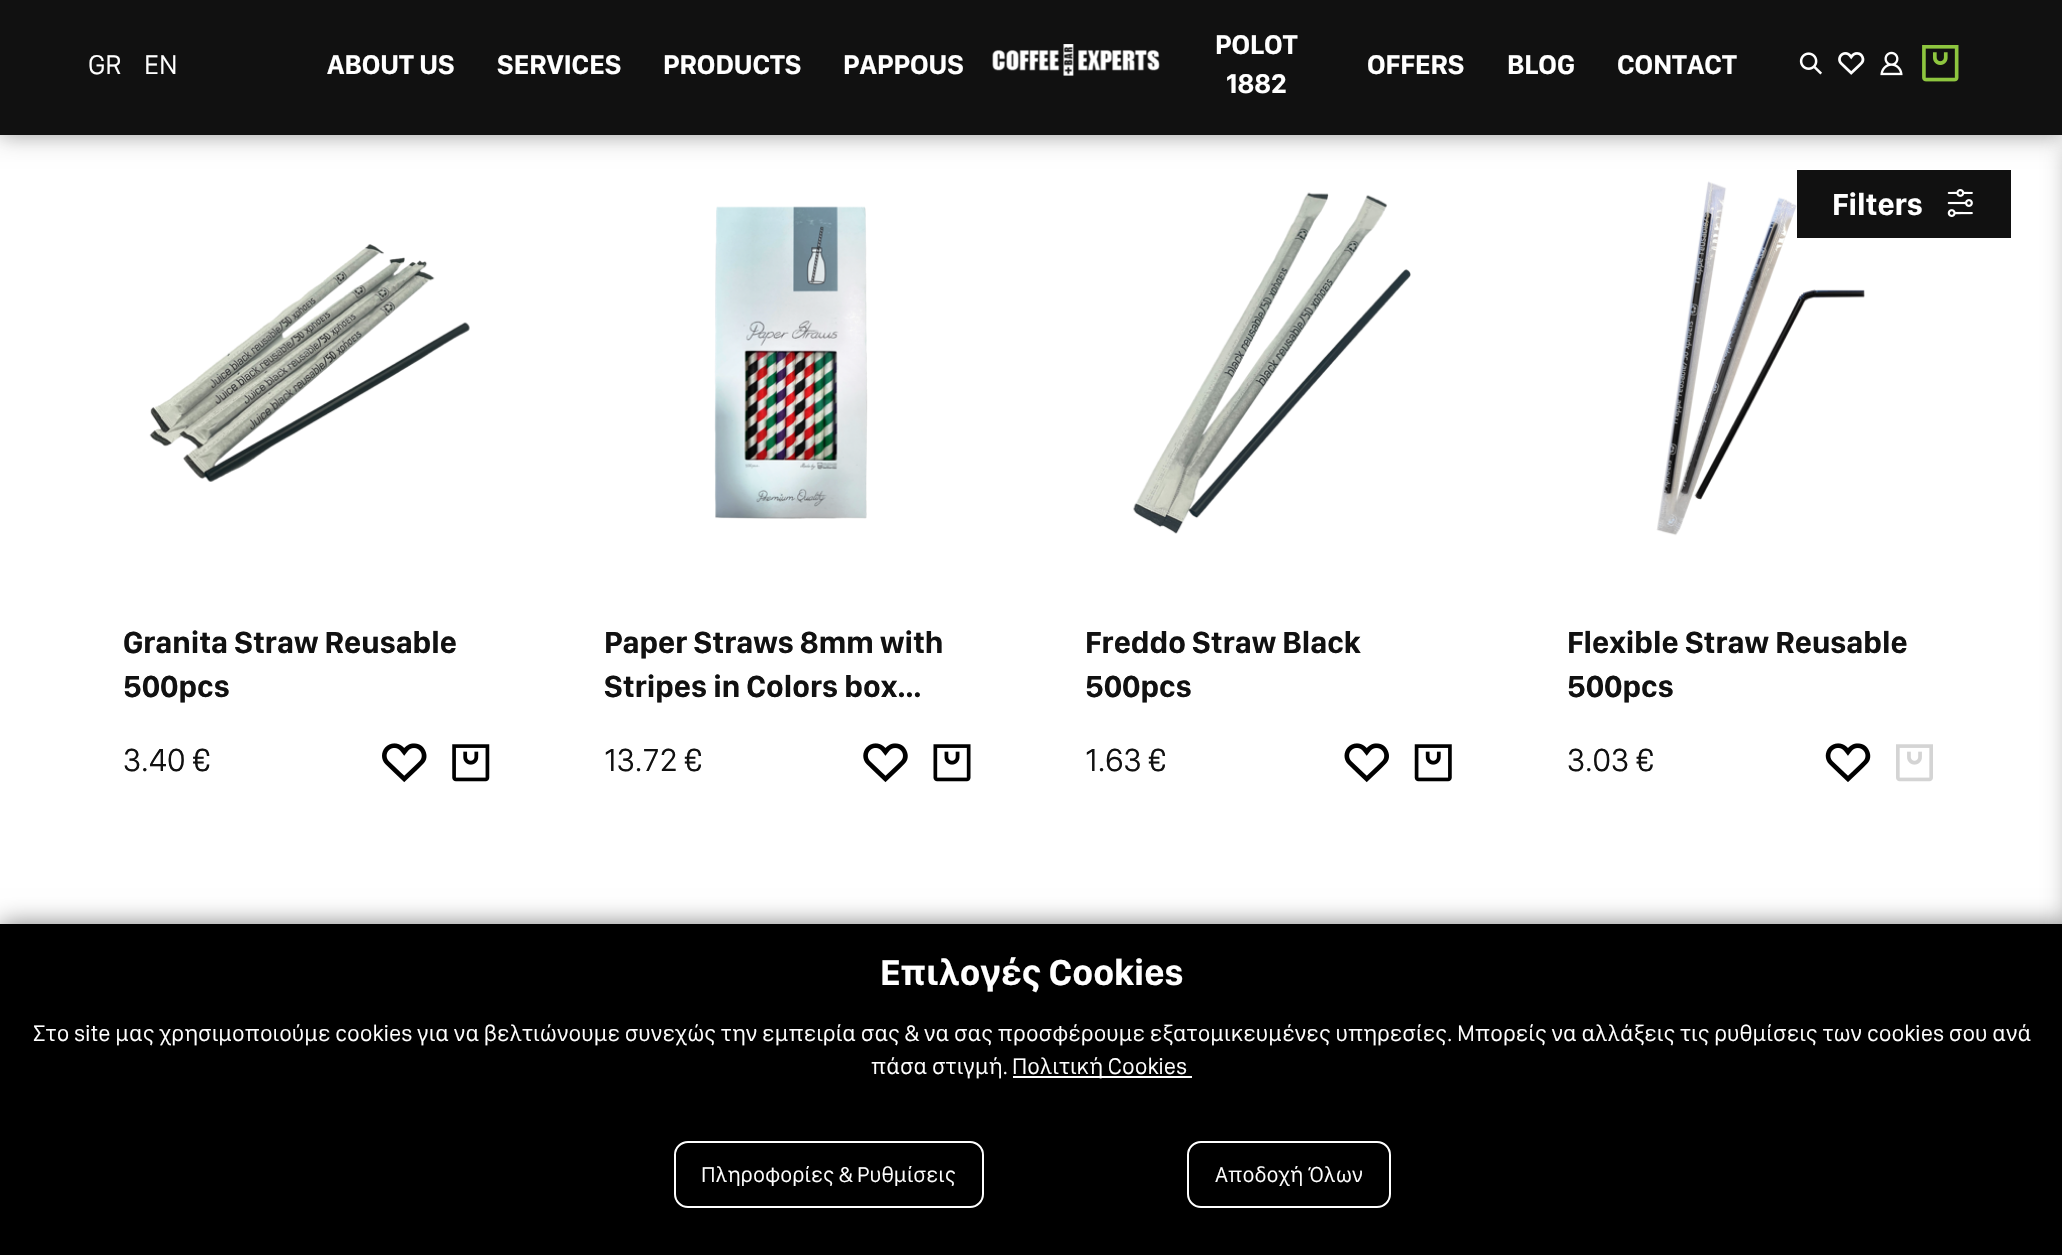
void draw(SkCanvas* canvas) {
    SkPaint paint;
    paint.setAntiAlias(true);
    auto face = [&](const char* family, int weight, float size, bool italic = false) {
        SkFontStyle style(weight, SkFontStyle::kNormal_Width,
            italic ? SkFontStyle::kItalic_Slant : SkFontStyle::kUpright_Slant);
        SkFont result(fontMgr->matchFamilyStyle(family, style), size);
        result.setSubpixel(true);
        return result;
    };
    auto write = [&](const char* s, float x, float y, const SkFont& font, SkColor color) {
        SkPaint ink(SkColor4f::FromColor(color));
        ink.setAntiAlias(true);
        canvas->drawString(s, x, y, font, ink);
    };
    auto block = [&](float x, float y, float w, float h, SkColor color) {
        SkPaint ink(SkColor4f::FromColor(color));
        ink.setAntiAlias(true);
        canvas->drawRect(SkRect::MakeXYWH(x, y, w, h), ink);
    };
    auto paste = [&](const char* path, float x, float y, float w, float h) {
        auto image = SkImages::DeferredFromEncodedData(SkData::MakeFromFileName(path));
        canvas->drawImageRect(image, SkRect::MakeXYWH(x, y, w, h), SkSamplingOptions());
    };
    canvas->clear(SK_ColorWHITE);
    paste("pic16.png", 1656, 181, 209, 355);
    block(1797, 170, 214, 68, SkColorSetRGB(17, 17, 17));
    paint.setColor(SkColorSetARGB(77, 0, 0, 0));
    paint.setMaskFilter(SkMaskFilter::MakeBlur(kNormal_SkBlurStyle, 11.5f));
    canvas->drawRect(SkRect::MakeXYWH(0, 0, 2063, 135), paint);
    paint.setMaskFilter(nullptr);
    paint.setColor(SkColorSetARGB(26, 0, 0, 0));
    paint.setMaskFilter(SkMaskFilter::MakeBlur(kNormal_SkBlurStyle, 9));
    canvas->drawRect(SkRect::MakeXYWH(0, -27, 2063, 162), paint);
    paint.setMaskFilter(nullptr);
    block(0, 0, 2062, 135, SkColorSetRGB(17, 17, 17));
    auto kFont1 = face("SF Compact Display", 400, 28);
    write("GR", 88, 74, kFont1, SK_ColorWHITE);
    write("EN", 144, 74, kFont1, SK_ColorWHITE);
    auto kFont2 = face("SF Compact Display", 700, 28);
    write("ABOUT US", 327, 74, kFont2, SK_ColorWHITE);
    write("SERVICES", 497, 74, kFont2, SK_ColorWHITE);
    write("PRODUCTS", 663, 74, kFont2, SK_ColorWHITE);
    write("PAPPOUS", 843, 74, kFont2, SK_ColorWHITE);
    paste("pic1.png", 992, 44, 168, 32);
    write("POLOT", 1215, 54, kFont2, SK_ColorWHITE);
    write("1882", 1226, 93, kFont2, SK_ColorWHITE);
    write("OFFERS", 1367, 74, kFont2, SK_ColorWHITE);
    write("BLOG", 1507, 74, kFont2, SK_ColorWHITE);
    write("CONTACT", 1617, 74, kFont2, SK_ColorWHITE);
    paste("pic2.png", 1799, 52, 23, 23);
    paste("pic3.png", 1838, 52, 27, 23);
    paste("pic4.png", 1880, 51, 23, 25);
    paste("pic5.png", 1922, 45, 37, 37);
    auto kFont3 = face("SF Compact Display", 700, 31.5f);
    write("Filters", 1832, 215, kFont3, SK_ColorWHITE);
    paste("pic6.png", 1947, 189, 26, 28);
    paint.setColor(SkColorSetARGB(77, 0, 0, 0));
    paint.setMaskFilter(SkMaskFilter::MakeBlur(kNormal_SkBlurStyle, 11.5f));
    canvas->drawRect(SkRect::MakeXYWH(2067, 147, 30, 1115), paint);
    paint.setMaskFilter(nullptr);
    paste("pic7.png", 149, 244, 321, 238);
    write("Granita Straw Reusable", 123, 653, kFont3, SkColorSetRGB(17, 17, 17));
    write("500pcs", 123, 697, kFont3, SkColorSetRGB(17, 17, 17));
    auto kFont4 = face("SF Compact Display", 400, 33);
    write("3.40 €", 123, 771, kFont4, SkColorSetRGB(17, 17, 17));
    paste("pic8.png", 382, 743, 45, 40);
    paste("pic9.png", 452, 744, 38, 38);
    paste("pic10.png", 714, 206, 154, 313);
    write("Paper Straws 8mm with", 604, 653, kFont3, SkColorSetRGB(17, 17, 17));
    write("Stripes in Colors box…", 604, 697, kFont3, SkColorSetRGB(17, 17, 17));
    write("13.72 €", 604, 771, kFont4, SkColorSetRGB(17, 17, 17));
    paste("pic11.png", 863, 743, 45, 40);
    paste("pic12.png", 933, 744, 38, 38);
    paste("pic13.png", 1133, 192, 278, 342);
    write("Freddo Straw Black", 1085, 653, kFont3, SkColorSetRGB(17, 17, 17));
    write("500pcs", 1085, 697, kFont3, SkColorSetRGB(17, 17, 17));
    write("1.63 €", 1085, 771, kFont4, SkColorSetRGB(17, 17, 17));
    paste("pic14.png", 1344, 743, 45, 40);
    paste("pic15.png", 1414, 744, 38, 38);
    write("Flexible Straw Reusable", 1567, 653, kFont3, SkColorSetRGB(17, 17, 17));
    write("500pcs", 1567, 697, kFont3, SkColorSetRGB(17, 17, 17));
    write("3.03 €", 1567, 771, kFont4, SkColorSetRGB(17, 17, 17));
    paste("pic17.png", 1825, 743, 46, 39);
    paste("pic18.png", 1896, 744, 37, 38);
    paint.setColor(SkColorSetARGB(128, 0, 0, 0));
    paint.setMaskFilter(SkMaskFilter::MakeBlur(kNormal_SkBlurStyle, 12));
    canvas->drawRect(SkRect::MakeXYWH(0, 924, 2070, 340), paint);
    paint.setMaskFilter(nullptr);
    block(0, 924, 2062, 331, SK_ColorBLACK);
    auto kFont5 = face("SF Compact Display", 700, 37.25f);
    write("Επιλογές Cookies", 880, 985, kFont5, SK_ColorWHITE);
    auto kFont6 = face("SF Compact Display", 400, 23.33f);
    write("Στο site μας χρησιμοποιούμε cookies για να βελτιώνουμε συνεχώς την εμπειρία σας & να σας προσφέρουμε εξατομικευμένες υπηρεσίες. Μπορείς να αλλάξεις τις ρυθμίσεις των cookies σου ανά", 33, 1041, kFont6, SK_ColorWHITE);
    write("πάσα στιγμή.", 871, 1074, kFont6, SK_ColorWHITE);
    block(1013, 1076, 179, 2, SK_ColorWHITE);
    write("Πολιτική Cookies", 1012, 1074, kFont6, SK_ColorWHITE);
    paint.setStyle(SkPaint::kStroke_Style);
    paint.setStrokeWidth(2);
    paint.setColor(SK_ColorWHITE);
    canvas->drawRoundRect(SkRect::MakeXYWH(675, 1142, 308, 65), 13, 13, paint);
    auto kFont7 = face("SF Compact Display", 400, 22.25f);
    write("Πληροφορίες & Ρυθμίσεις", 701, 1182, kFont7, SK_ColorWHITE);
    canvas->drawRoundRect(SkRect::MakeXYWH(1188, 1142, 202, 65), 13, 13, paint);
    write("Αποδοχή Όλων", 1215, 1182, kFont7, SK_ColorWHITE);
}
